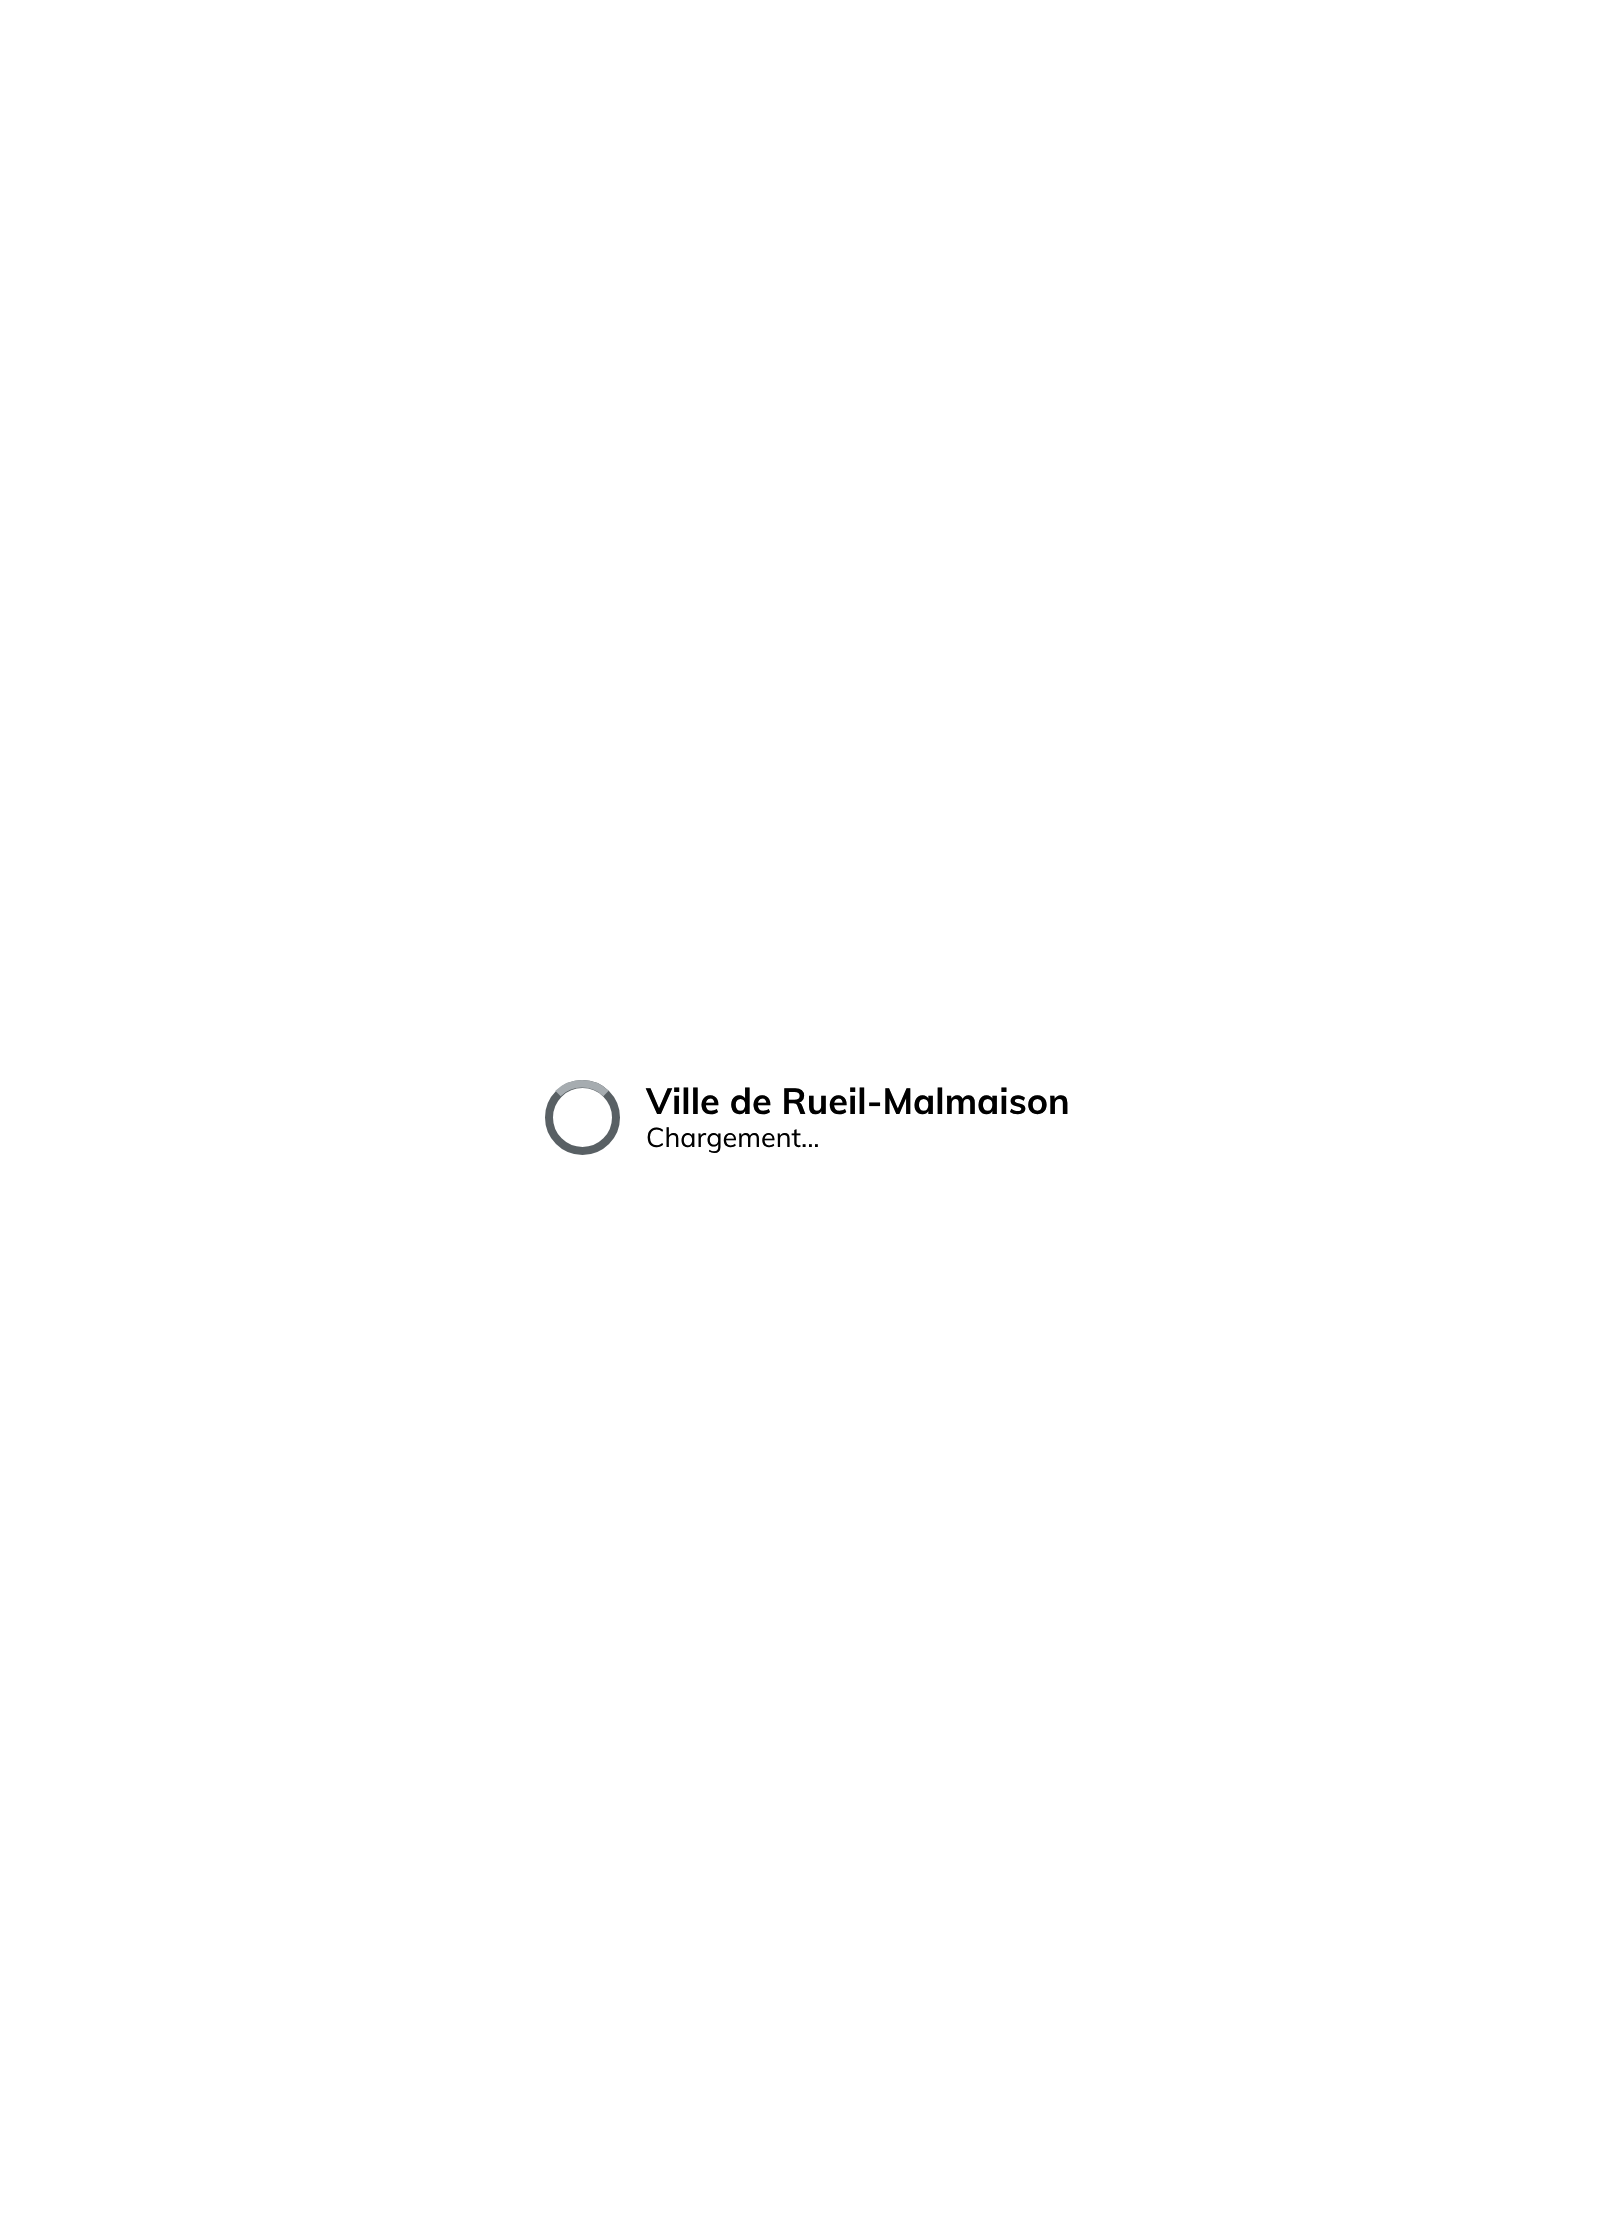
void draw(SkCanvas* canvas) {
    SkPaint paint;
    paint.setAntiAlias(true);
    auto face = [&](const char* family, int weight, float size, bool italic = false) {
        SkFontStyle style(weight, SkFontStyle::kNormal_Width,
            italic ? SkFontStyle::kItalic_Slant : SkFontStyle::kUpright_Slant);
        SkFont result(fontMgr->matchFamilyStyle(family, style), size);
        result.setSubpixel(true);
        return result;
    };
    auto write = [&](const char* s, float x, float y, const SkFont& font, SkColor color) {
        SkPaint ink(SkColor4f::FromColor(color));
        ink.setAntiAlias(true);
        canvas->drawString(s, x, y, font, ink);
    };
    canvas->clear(SK_ColorWHITE);
    paint.setStyle(SkPaint::kStroke_Style);
    paint.setStrokeWidth(8);
    paint.setColor(SkColorSetRGB(89, 96, 100));
    canvas->drawCircle(582.5f, 1117.5f, 33.5f, paint);
    paint.setStrokeWidth(7.5f);
    paint.setColor(SkColorSetRGB(166, 172, 176));
    canvas->drawPath(SkPathBuilder().moveTo(558, 1093.5f).cubicTo(571, 1080.5f, 593, 1080.5f, 606, 1093.5f).detach(), paint);
    auto kFont1 = face("Muli", 700, 36);
    write("Ville de Rueil-Malmaison", 646, 1114, kFont1, SK_ColorBLACK);
    auto kFont2 = face("Muli", 400, 27);
    write("Chargement...", 646, 1147, kFont2, SK_ColorBLACK);
}
